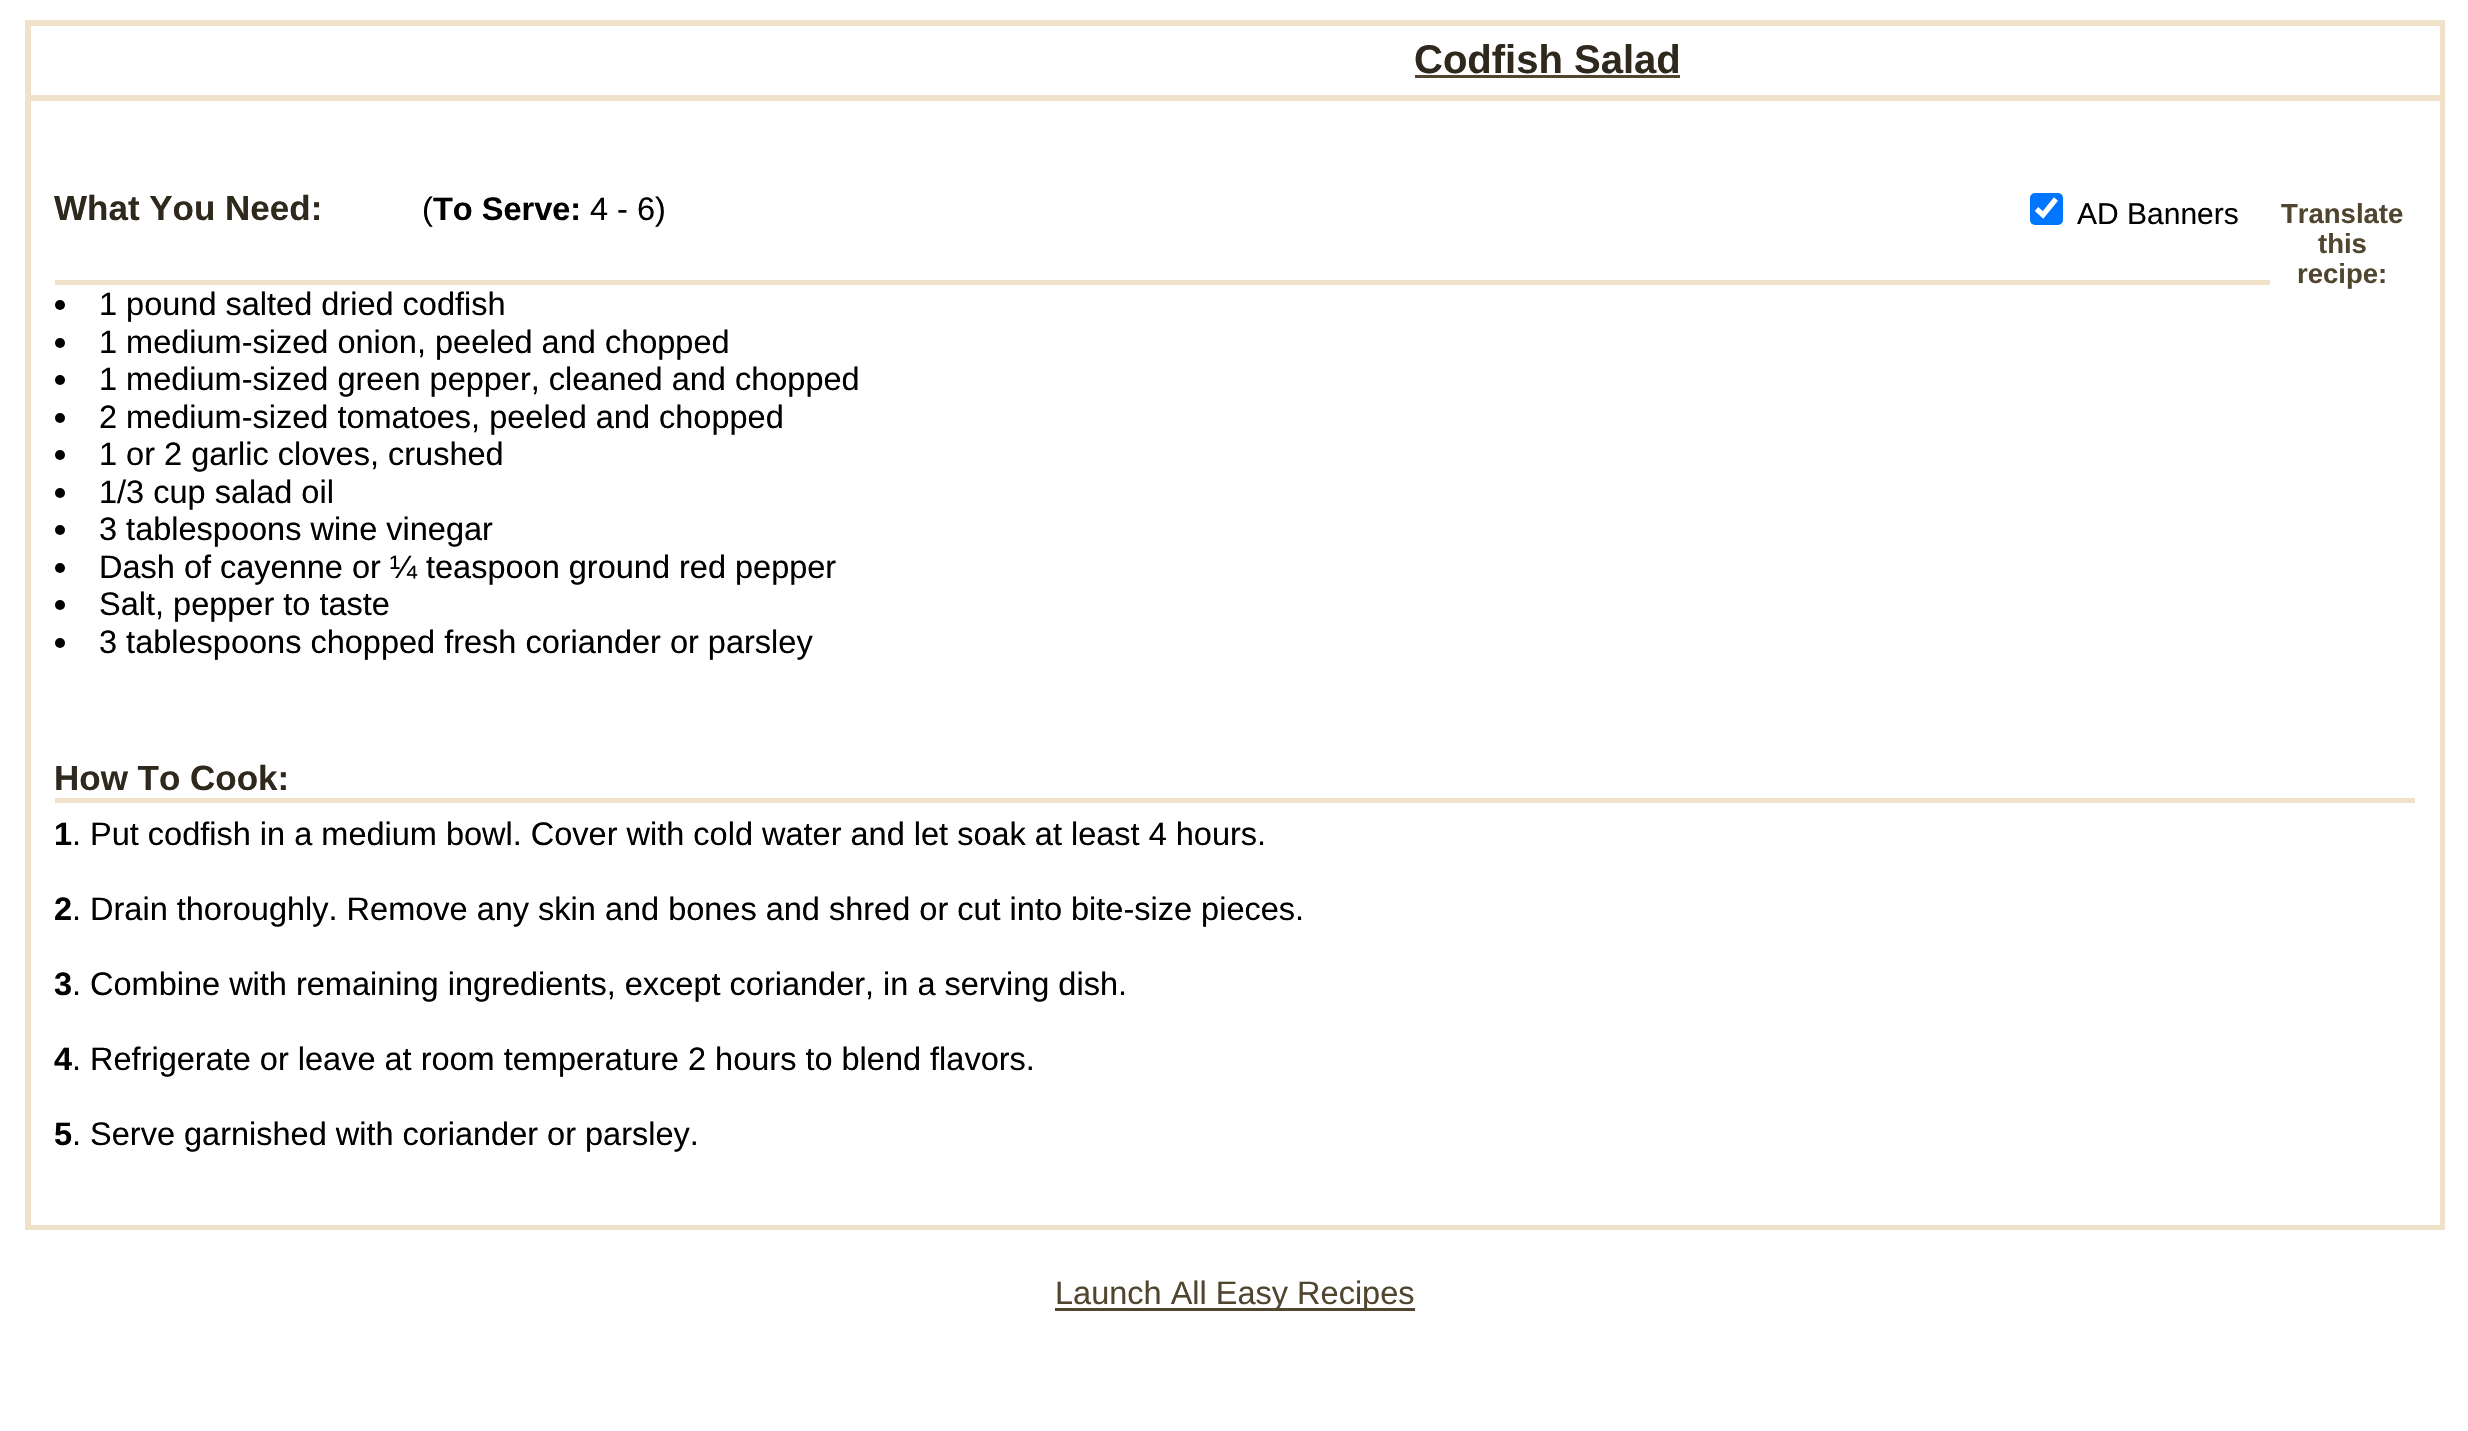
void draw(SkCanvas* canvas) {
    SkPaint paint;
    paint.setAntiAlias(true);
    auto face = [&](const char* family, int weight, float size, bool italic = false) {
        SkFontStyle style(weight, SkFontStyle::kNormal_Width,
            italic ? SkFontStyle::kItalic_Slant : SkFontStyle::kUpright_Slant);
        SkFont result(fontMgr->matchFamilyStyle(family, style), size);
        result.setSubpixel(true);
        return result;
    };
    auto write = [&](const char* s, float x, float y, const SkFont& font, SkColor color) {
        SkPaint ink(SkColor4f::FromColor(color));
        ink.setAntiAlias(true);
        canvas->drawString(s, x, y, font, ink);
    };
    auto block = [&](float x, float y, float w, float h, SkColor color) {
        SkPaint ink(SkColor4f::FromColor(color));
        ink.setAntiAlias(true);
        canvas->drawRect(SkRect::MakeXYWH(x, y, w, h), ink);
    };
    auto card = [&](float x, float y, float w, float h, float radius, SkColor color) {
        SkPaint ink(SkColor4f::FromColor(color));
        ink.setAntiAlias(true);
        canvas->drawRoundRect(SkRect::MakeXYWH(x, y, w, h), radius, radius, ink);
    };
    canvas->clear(SK_ColorWHITE);
    paint.setStyle(SkPaint::kStroke_Style);
    paint.setStrokeWidth(3);
    paint.setColor(SkColorSetRGB(239, 226, 200));
    canvas->drawRect(SkRect::MakeXYWH(26.5f, 21.5f, 2417, 1207), paint);
    canvas->drawRect(SkRect::MakeXYWH(29.5f, 24.5f, 2412, 72), paint);
    auto kFont1 = face("Liberation Sans", 700, 40);
    write("Codfish Salad", 1414, 73, kFont1, SkColorSetRGB(47, 40, 28));
    block(1415, 75, 265, 3, SkColorSetRGB(80, 69, 47));
    canvas->drawRect(SkRect::MakeXYWH(29.5f, 99.5f, 2412, 1127), paint);
    auto kFont2 = face("Liberation Sans", 700, 35);
    write("What You Need:", 54, 220, kFont2, SkColorSetRGB(47, 40, 28));
    auto kFont3 = face("Liberation Sans", 400, 32.5f);
    write("(", 422, 220, kFont3, SK_ColorBLACK);
    auto kFont4 = face("Liberation Sans", 700, 32.5f);
    write("To Serve:", 433, 220, kFont4, SK_ColorBLACK);
    write("4 - 6)", 590, 220, kFont3, SK_ColorBLACK);
    card(2030, 193, 33, 32, 5, SkColorSetRGB(0, 117, 255));
    paint.setStrokeWidth(5.2f);
    paint.setColor(SK_ColorWHITE);
    canvas->drawPath(SkPathBuilder().moveTo(2036.5f, 209).lineTo(2043, 215).lineTo(2056, 199).detach(), paint);
    auto kFont5 = face("Liberation Sans", 400, 30);
    write("AD Banners", 2077, 224, kFont5, SK_ColorBLACK);
    block(55, 280, 2215, 5, SkColorSetRGB(239, 226, 200));
    paint.setStyle(SkPaint::kFill_Style);
    paint.setColor(SK_ColorBLACK);
    canvas->drawCircle(60, 305, 5, paint);
    write("1 pound salted dried codfish", 99, 315, kFont3, SK_ColorBLACK);
    canvas->drawCircle(60, 343, 5, paint);
    write("1 medium-sized onion, peeled and chopped", 99, 353, kFont3, SK_ColorBLACK);
    canvas->drawCircle(60, 380, 5, paint);
    write("1 medium-sized green pepper, cleaned and chopped", 99, 390, kFont3, SK_ColorBLACK);
    canvas->drawCircle(60, 418, 5, paint);
    write("2 medium-sized tomatoes, peeled and chopped", 99, 428, kFont3, SK_ColorBLACK);
    canvas->drawCircle(60, 455, 5, paint);
    write("1 or 2 garlic cloves, crushed", 99, 465, kFont3, SK_ColorBLACK);
    canvas->drawCircle(60, 493, 5, paint);
    write("1/3 cup salad oil", 99, 503, kFont3, SK_ColorBLACK);
    canvas->drawCircle(60, 530, 5, paint);
    write("3 tablespoons wine vinegar", 99, 540, kFont3, SK_ColorBLACK);
    canvas->drawCircle(60, 568, 5, paint);
    write("Dash of cayenne or ¼ teaspoon ground red pepper", 99, 578, kFont3, SK_ColorBLACK);
    canvas->drawCircle(60, 605, 5, paint);
    write("Salt, pepper to taste", 99, 615, kFont3, SK_ColorBLACK);
    canvas->drawCircle(60, 643, 5, paint);
    write("3 tablespoons chopped fresh coriander or parsley", 99, 653, kFont3, SK_ColorBLACK);
    auto kFont6 = face("Liberation Sans", 700, 27.5f);
    write("Translate", 2281, 223, kFont6, SkColorSetRGB(80, 69, 47));
    write("this", 2318, 253, kFont6, SkColorSetRGB(80, 69, 47));
    write("recipe:", 2297, 283, kFont6, SkColorSetRGB(80, 69, 47));
    write("How To Cook:", 54, 790, kFont2, SkColorSetRGB(47, 40, 28));
    block(55, 798, 2360, 5, SkColorSetRGB(239, 226, 200));
    write("1", 54, 845, kFont4, SK_ColorBLACK);
    write(". Put codfish in a medium bowl. Cover with cold water and let soak at least 4 hours.", 72, 845, kFont3, SK_ColorBLACK);
    write("2", 54, 920, kFont4, SK_ColorBLACK);
    write(". Drain thoroughly. Remove any skin and bones and shred or cut into bite-size pieces.", 72, 920, kFont3, SK_ColorBLACK);
    write("3", 54, 995, kFont4, SK_ColorBLACK);
    write(". Combine with remaining ingredients, except coriander, in a serving dish.", 72, 995, kFont3, SK_ColorBLACK);
    write("4", 54, 1070, kFont4, SK_ColorBLACK);
    write(". Refrigerate or leave at room temperature 2 hours to blend flavors.", 72, 1070, kFont3, SK_ColorBLACK);
    write("5", 54, 1145, kFont4, SK_ColorBLACK);
    write(". Serve garnished with coriander or parsley.", 72, 1145, kFont3, SK_ColorBLACK);
    block(1055, 1308, 360, 3, SkColorSetRGB(80, 69, 47));
    write("Launch All Easy Recipes", 1055, 1304, kFont3, SkColorSetRGB(80, 69, 47));
}
